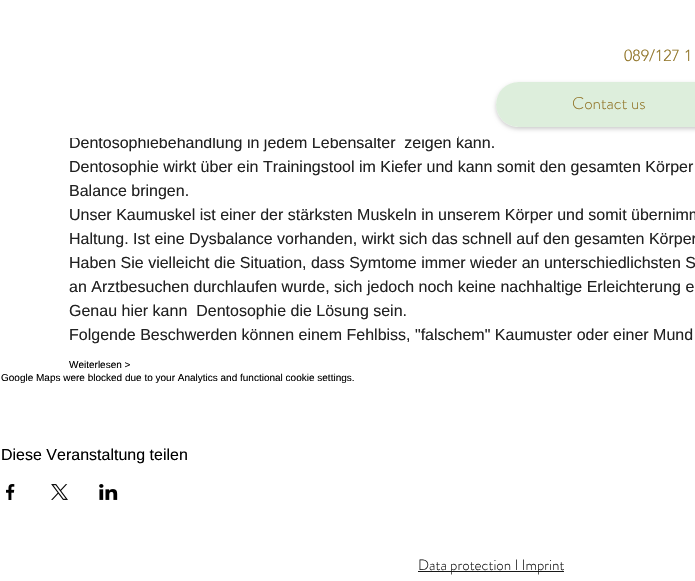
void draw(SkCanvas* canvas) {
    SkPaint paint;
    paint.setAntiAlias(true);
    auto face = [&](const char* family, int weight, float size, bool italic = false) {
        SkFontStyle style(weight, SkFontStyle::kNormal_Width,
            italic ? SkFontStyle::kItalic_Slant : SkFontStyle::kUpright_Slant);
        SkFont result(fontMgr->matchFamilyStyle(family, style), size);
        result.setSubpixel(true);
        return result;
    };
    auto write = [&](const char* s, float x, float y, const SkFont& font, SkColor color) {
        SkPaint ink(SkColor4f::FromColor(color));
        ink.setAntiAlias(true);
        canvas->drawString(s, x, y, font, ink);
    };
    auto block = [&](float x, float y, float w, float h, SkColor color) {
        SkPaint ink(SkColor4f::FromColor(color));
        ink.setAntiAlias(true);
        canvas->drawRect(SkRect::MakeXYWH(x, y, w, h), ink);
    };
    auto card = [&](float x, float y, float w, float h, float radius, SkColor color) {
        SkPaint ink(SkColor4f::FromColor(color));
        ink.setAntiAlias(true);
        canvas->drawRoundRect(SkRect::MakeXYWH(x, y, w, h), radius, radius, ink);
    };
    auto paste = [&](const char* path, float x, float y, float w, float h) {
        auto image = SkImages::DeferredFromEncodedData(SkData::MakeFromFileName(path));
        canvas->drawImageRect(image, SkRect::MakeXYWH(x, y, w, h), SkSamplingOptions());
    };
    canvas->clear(SK_ColorWHITE);
    auto kFont1 = face("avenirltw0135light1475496", 300, 16);
    write("089/127 1", 624, 61, kFont1, SkColorSetRGB(146, 118, 42));
    canvas->save();
    canvas->clipPath(SkPathBuilder(SkPathFillType::kEvenOdd).moveTo(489, 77).lineTo(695, 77).lineTo(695, 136).lineTo(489, 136).close().moveTo(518.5f, 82).lineTo(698.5f, 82).cubicTo(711, 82, 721, 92, 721, 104.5f).cubicTo(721, 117, 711, 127, 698.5f, 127).lineTo(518.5f, 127).cubicTo(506, 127, 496, 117, 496, 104.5f).cubicTo(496, 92, 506, 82, 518.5f, 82).close().detach(), true);
    paint.setColor(SkColorSetARGB(51, 0, 0, 0));
    paint.setMaskFilter(SkMaskFilter::MakeBlur(kNormal_SkBlurStyle, 2));
    canvas->drawRoundRect(SkRect::MakeXYWH(496, 84, 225, 45), 22.5f, 22.5f, paint);
    paint.setMaskFilter(nullptr);
    canvas->restore();
    card(496, 82, 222, 45, 22.5f, SkColorSetARGB(128, 187, 221, 186));
    auto kFont2 = face("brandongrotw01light", 300, 17);
    write("Contact us", 572, 109, kFont2, SkColorSetRGB(146, 118, 42));
    auto kFont3 = face("Liberation Sans", 400, 16);
    write("Dentosophiebehandlung in jedem Lebensalter  zeigen kann.", 69, 148, kFont3, SkColorSetRGB(33, 33, 33));
    block(69, 136, 389, 2, SK_ColorWHITE);
    write("Dentosophie wirkt über ein Trainingstool im Kiefer und kann somit den gesamten Körper", 69, 172, kFont3, SkColorSetRGB(33, 33, 33));
    write("Balance bringen.", 69, 196, kFont3, SkColorSetRGB(33, 33, 33));
    write("Unser Kaumuskel ist einer der stärksten Muskeln in unserem Körper und somit übernimm", 69, 220, kFont3, SkColorSetRGB(33, 33, 33));
    write("Haltung. Ist eine Dysbalance vorhanden, wirkt sich das schnell auf den gesamten Körper", 69, 244, kFont3, SkColorSetRGB(33, 33, 33));
    write("Haben Sie vielleicht die Situation, dass Symtome immer wieder an unterschiedlichsten S", 69, 268, kFont3, SkColorSetRGB(33, 33, 33));
    write("an Arztbesuchen durchlaufen wurde, sich jedoch noch keine nachhaltige Erleichterung e", 69, 292, kFont3, SkColorSetRGB(33, 33, 33));
    write("Genau hier kann  Dentosophie die Lösung sein.", 69, 316, kFont3, SkColorSetRGB(33, 33, 33));
    write("Folgende Beschwerden können einem Fehlbiss, \"falschem\" Kaumuster oder einer Mund", 69, 340, kFont3, SkColorSetRGB(33, 33, 33));
    auto kFont4 = face("Liberation Sans", 400, 10);
    write("Weiterlesen >", 69, 368, kFont4, SK_ColorBLACK);
    write("Google Maps were blocked due to your Analytics and functional cookie settings.", 1, 381, kFont4, SK_ColorBLACK);
    write("Diese Veranstaltung teilen", 1, 460, kFont3, SK_ColorBLACK);
    paste("pic1.png", 6, 484, 9, 16);
    paste("pic2.png", 51, 484, 17, 16);
    paste("pic3.png", 99, 484, 19, 16);
    block(418, 571, 146, 1, SkColorSetRGB(24, 24, 24));
    auto kFont5 = face("brandongrotw01light", 300, 15);
    write("Data protection I Imprint", 418, 570, kFont5, SkColorSetRGB(24, 24, 24));
}
